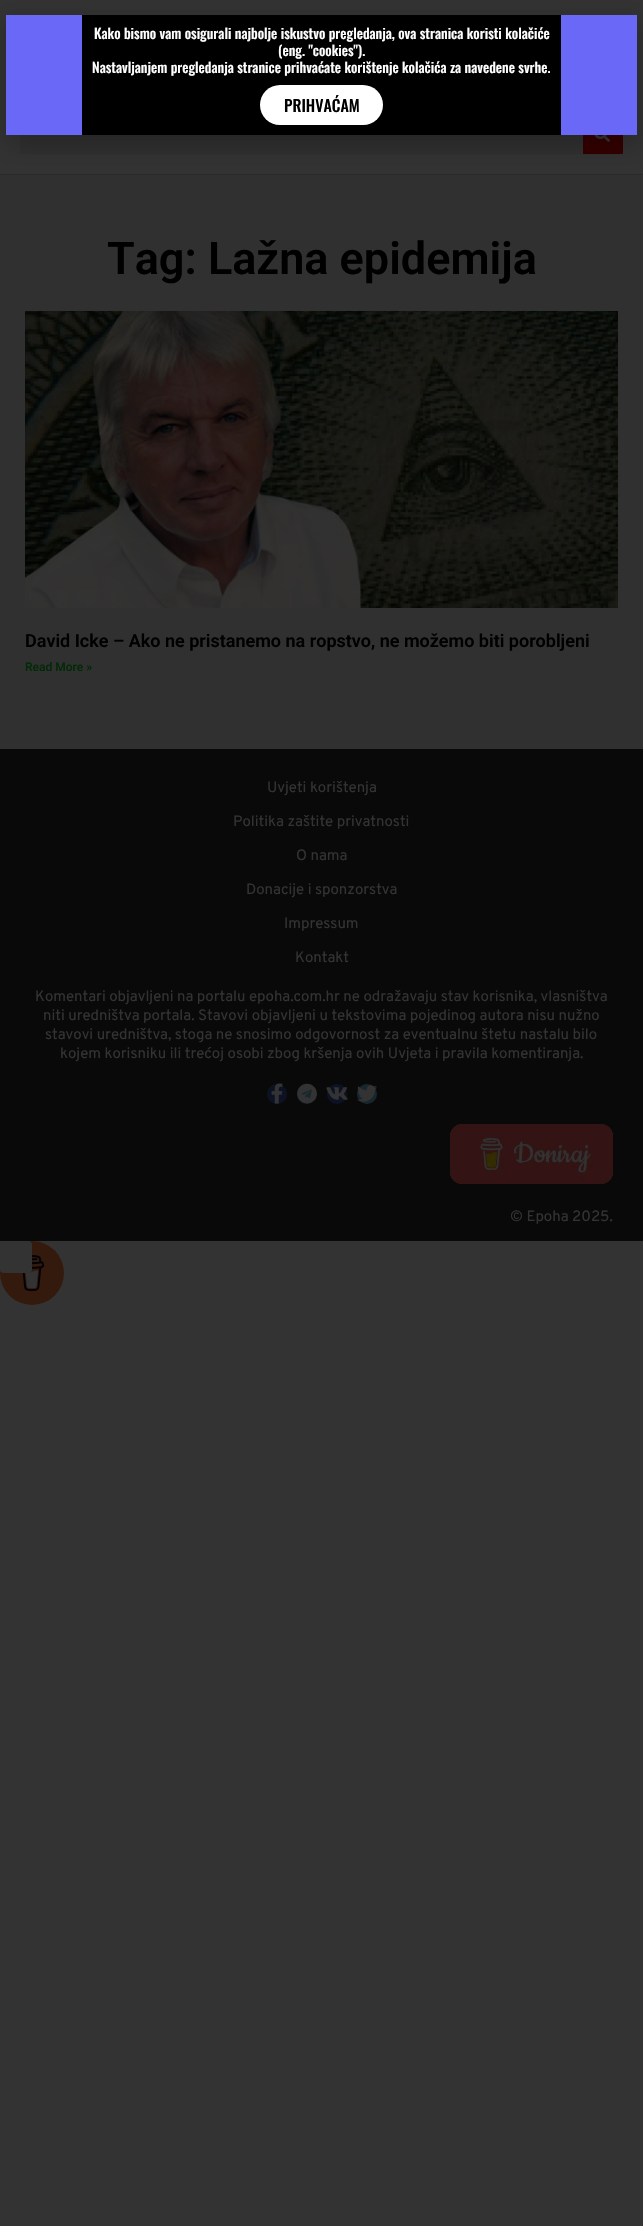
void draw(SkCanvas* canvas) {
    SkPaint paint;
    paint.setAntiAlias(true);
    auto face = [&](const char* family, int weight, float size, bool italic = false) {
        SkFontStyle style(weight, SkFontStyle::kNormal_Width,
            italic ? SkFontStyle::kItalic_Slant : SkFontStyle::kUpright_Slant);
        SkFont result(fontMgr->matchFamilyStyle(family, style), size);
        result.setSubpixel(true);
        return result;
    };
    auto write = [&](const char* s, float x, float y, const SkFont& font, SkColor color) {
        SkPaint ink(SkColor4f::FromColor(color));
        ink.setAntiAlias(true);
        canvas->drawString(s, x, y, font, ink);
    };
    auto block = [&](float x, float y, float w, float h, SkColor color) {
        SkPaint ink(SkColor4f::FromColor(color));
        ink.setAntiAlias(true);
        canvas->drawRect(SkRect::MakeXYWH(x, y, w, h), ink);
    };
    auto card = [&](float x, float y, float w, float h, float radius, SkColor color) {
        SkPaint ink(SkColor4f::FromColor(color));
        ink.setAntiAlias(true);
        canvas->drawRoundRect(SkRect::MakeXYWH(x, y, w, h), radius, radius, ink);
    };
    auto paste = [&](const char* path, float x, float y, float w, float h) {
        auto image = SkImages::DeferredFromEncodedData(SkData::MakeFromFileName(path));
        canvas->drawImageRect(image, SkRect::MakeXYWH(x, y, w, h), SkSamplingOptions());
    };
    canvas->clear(SkColorSetRGB(51, 51, 51));
    block(0, 174, 643, 1, SkColorSetRGB(42, 42, 42));
    card(20, 114, 603, 40, 1, SkColorSetRGB(48, 48, 49));
    paint.setColor(SkColorSetRGB(51, 0, 0));
    canvas->drawPath(SkPathBuilder().moveTo(583, 114).lineTo(622, 114).cubicTo(622.5f, 114, 623, 114.5f, 623, 115).lineTo(623, 153).cubicTo(623, 153.5f, 622.5f, 154, 622, 154).lineTo(583, 154).close().detach(), paint);
    paste("pic1.png", 594, 135, 16, 7);
    block(0, 175, 643, 574, SkColorSetRGB(48, 48, 48));
    paint.setColor(SkColorSetARGB(51, 0, 0, 0));
    paint.setMaskFilter(SkMaskFilter::MakeBlur(kNormal_SkBlurStyle, 11.5f));
    canvas->drawRect(SkRect::MakeXYWH(5, 20, 637, 126), paint);
    paint.setMaskFilter(nullptr);
    block(6, 15, 631, 120, SkColorSetRGB(106, 104, 246));
    block(82, 15, 479, 120, SK_ColorBLACK);
    auto kFont1 = face("Oswald", 500, 14);
    write("Kako bismo vam osigurali najbolje iskustvo pregledanja, ova stranica koristi kolačiće", 94, 39, kFont1, SK_ColorWHITE);
    write("(eng. \"cookies\").", 278, 56, kFont1, SK_ColorWHITE);
    write("Nastavljanjem pregledanja stranice prihvaćate korištenje kolačića za navedene svrhe.", 92, 73, kFont1, SK_ColorWHITE);
    card(260, 85, 123, 40, 20, SK_ColorWHITE);
    auto kFont2 = face("Oswald", 500, 16);
    write("PRIHVAĆAM", 284, 112, kFont2, SK_ColorBLACK);
    auto kFont3 = face("Roboto", 600, 45);
    write("Tag: Lažna epidemija", 107, 274, kFont3, SK_ColorBLACK);
    paste("pic2.png", 25, 311, 593, 297);
    auto kFont4 = face("Roboto", 600, 18);
    write("David Icke – Ako ne pristanemo na ropstvo, ne možemo biti porobljeni", 25, 647, kFont4, SK_ColorBLACK);
    auto kFont5 = face("Roboto", 500, 12);
    write("Read More »", 25, 671, kFont5, SkColorSetRGB(0, 41, 5));
    block(0, 749, 643, 492, SkColorSetRGB(9, 9, 9));
    auto kFont6 = face("Overpass", 400, 15);
    write("Uvjeti korištenja", 267, 792, kFont6, SkColorSetRGB(51, 51, 51));
    write("Politika zaštite privatnosti", 233, 826, kFont6, SkColorSetRGB(51, 51, 51));
    write("O nama", 296, 860, kFont6, SkColorSetRGB(51, 51, 51));
    write("Donacije i sponzorstva", 246, 894, kFont6, SkColorSetRGB(51, 51, 51));
    write("Impressum", 284, 928, kFont6, SkColorSetRGB(51, 51, 51));
    write("Kontakt", 295, 962, kFont6, SkColorSetRGB(51, 51, 51));
    write("Komentari objavljeni na portalu epoha.com.hr ne odražavaju stav korisnika, vlasništva", 35, 1001, kFont6, SkColorSetRGB(51, 51, 51));
    write("niti uredništva portala. Stavovi objavljeni u tekstovima pojedinog autora nisu nužno", 43, 1020, kFont6, SkColorSetRGB(51, 51, 51));
    write("stavovi uredništva, stoga ne snosimo odgovornost za eventualnu štetu nastalu bilo", 45, 1039, kFont6, SkColorSetRGB(51, 51, 51));
    write("kojem korisniku ili trećoj osobi zbog kršenja ovih Uvjeta i pravila komentiranja.", 60, 1058, kFont6, SkColorSetRGB(51, 51, 51));
    paint.setColor(SkColorSetRGB(13, 17, 36));
    canvas->drawCircle(277, 1094, 10, paint);
    paste("pic3.png", 271, 1083, 12, 21);
    paint.setColor(SkColorSetRGB(22, 39, 46));
    canvas->drawCircle(307, 1094, 10, paint);
    paste("pic4.png", 297, 1083, 20, 21);
    paint.setColor(SkColorSetRGB(13, 17, 36));
    canvas->drawCircle(337, 1094, 10, paint);
    paste("pic5.png", 326, 1087, 22, 13);
    paint.setColor(SkColorSetRGB(22, 39, 46));
    canvas->drawCircle(367, 1094, 10, paint);
    paste("pic6.png", 357, 1085, 20, 17);
    paste("pic7.png", 450, 1124, 163, 60);
    write("© Epoha 2025.", 510, 1221, kFont6, SkColorSetRGB(51, 51, 51));
    paint.setColor(SkColorSetRGB(51, 26, 13));
    canvas->drawCircle(32, 1273, 32, paint);
    paste("pic8.png", 22, 1255, 23, 36);
    card(0, 1241, 32, 32, 4, SkColorSetRGB(51, 51, 51));
}
